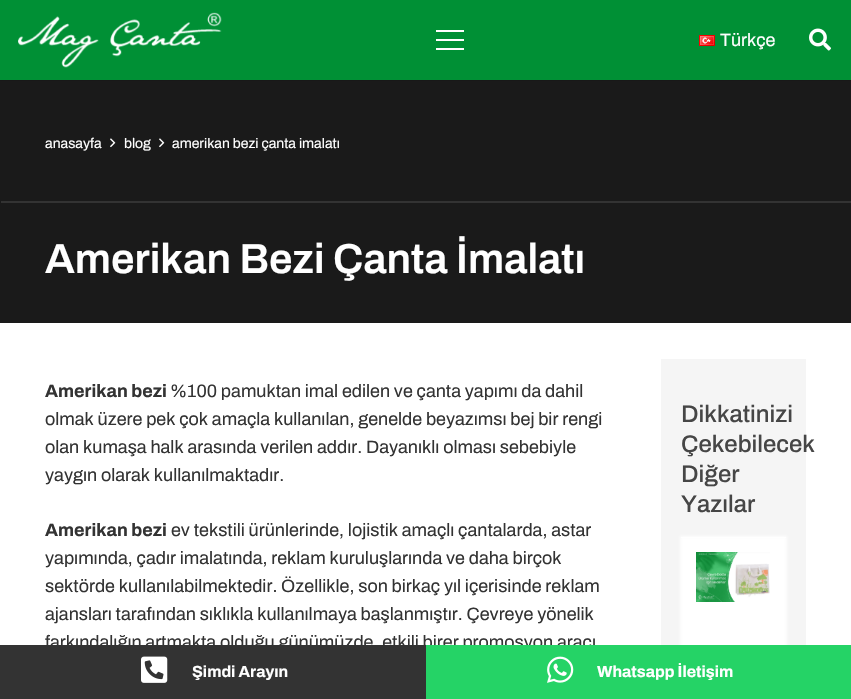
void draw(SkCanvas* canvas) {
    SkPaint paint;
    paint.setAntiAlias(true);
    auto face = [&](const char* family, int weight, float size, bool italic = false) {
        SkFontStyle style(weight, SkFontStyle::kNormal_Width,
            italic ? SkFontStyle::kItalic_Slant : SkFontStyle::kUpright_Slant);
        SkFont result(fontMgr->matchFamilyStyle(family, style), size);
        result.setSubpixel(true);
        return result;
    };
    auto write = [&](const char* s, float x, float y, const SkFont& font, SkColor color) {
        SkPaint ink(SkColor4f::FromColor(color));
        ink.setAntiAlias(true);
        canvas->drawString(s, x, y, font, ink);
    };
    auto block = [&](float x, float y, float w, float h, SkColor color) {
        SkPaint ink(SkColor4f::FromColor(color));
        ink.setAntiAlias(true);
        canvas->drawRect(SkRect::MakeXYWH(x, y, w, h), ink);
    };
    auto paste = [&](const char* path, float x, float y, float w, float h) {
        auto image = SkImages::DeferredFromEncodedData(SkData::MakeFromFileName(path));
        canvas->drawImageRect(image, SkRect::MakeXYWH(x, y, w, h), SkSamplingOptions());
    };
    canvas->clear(SK_ColorWHITE);
    block(0, 80, 851, 1, SkColorSetRGB(24, 24, 24));
    block(0, 0, 851, 80, SkColorSetRGB(0, 144, 53));
    paste("pic1.png", 18, 12, 204, 56);
    block(436, 39, 28, 2, SK_ColorWHITE);
    block(436, 30, 28, 2, SK_ColorWHITE);
    block(436, 48, 28, 2, SK_ColorWHITE);
    paste("pic2.png", 699, 35, 16, 11);
    auto kFont1 = face("Archivo", 400, 18);
    write("Türkçe", 720, 46, kFont1, SK_ColorWHITE);
    paste("pic3.png", 809, 28, 22, 23);
    block(0, 81, 851, 242, SkColorSetRGB(26, 26, 26));
    auto kFont2 = face("Archivo", 400, 14);
    write("anasayfa", 45, 148, kFont2, SK_ColorWHITE);
    paste("pic4.png", 110, 138, 6, 10);
    write("blog", 124, 148, kFont2, SK_ColorWHITE);
    paste("pic4.png", 159, 138, 6, 10);
    write("amerikan bezi çanta imalatı", 172, 148, kFont2, SK_ColorWHITE);
    block(1, 201, 850, 2, SkColorSetRGB(51, 51, 51));
    auto kFont3 = face("Archivo", 600, 42);
    write("Amerikan Bezi Çanta İmalatı", 45, 273, kFont3, SK_ColorWHITE);
    auto kFont4 = face("Archivo", 700, 18);
    write("Amerikan bezi", 45, 397, kFont4, SkColorSetRGB(51, 51, 51));
    write("%100 pamuktan imal edilen ve çanta yapımı da dahil", 170, 397, kFont1, SkColorSetRGB(51, 51, 51));
    write("olmak üzere pek çok amaçla kullanılan, genelde beyazımsı bej bir rengi", 45, 425, kFont1, SkColorSetRGB(51, 51, 51));
    write("olan kumaşa halk arasında verilen addır. Dayanıklı olması sebebiyle", 45, 453, kFont1, SkColorSetRGB(51, 51, 51));
    write("yaygın olarak kullanılmaktadır.", 45, 481, kFont1, SkColorSetRGB(51, 51, 51));
    write("Amerikan bezi", 45, 536, kFont4, SkColorSetRGB(51, 51, 51));
    write("ev tekstili ürünlerinde, lojistik amaçlı çantalarda, astar", 171, 536, kFont1, SkColorSetRGB(51, 51, 51));
    write("yapımında, çadır imalatında, reklam kuruluşlarında ve daha birçok", 45, 564, kFont1, SkColorSetRGB(51, 51, 51));
    write("sektörde kullanılabilmektedir. Özellikle, son birkaç yıl içerisinde reklam", 45, 592, kFont1, SkColorSetRGB(51, 51, 51));
    write("ajansları tarafından sıklıkla kullanılmaya başlanmıştır. Çevreye yönelik", 45, 620, kFont1, SkColorSetRGB(51, 51, 51));
    write("farkındalığın artmakta olduğu günümüzde, etkili birer promosyon aracı", 45, 648, kFont1, SkColorSetRGB(51, 51, 51));
    block(661, 359, 145, 286, SkColorSetRGB(245, 245, 245));
    auto kFont5 = face("Archivo", 500, 24);
    write("Dikkatinizi", 681, 422, kFont5, SkColorSetRGB(70, 70, 70));
    write("Çekebilecek", 681, 452, kFont5, SkColorSetRGB(70, 70, 70));
    write("Diğer", 681, 482, kFont5, SkColorSetRGB(70, 70, 70));
    write("Yazılar", 681, 512, kFont5, SkColorSetRGB(70, 70, 70));
    paint.setColor(SK_ColorWHITE);
    paint.setMaskFilter(SkMaskFilter::MakeBlur(kNormal_SkBlurStyle, 1.5f));
    canvas->drawRect(SkRect::MakeXYWH(680, 536, 107, 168), paint);
    paint.setMaskFilter(nullptr);
    block(681, 537, 105, 1, SK_ColorWHITE);
    paste("pic5.png", 696, 552, 74, 50);
    block(0, 645, 426, 54, SkColorSetRGB(51, 51, 51));
    paste("pic6.png", 141, 656, 27, 27);
    auto kFont6 = face("Archivo", 700, 16);
    write("Şimdi Arayın", 192, 677, kFont6, SK_ColorWHITE);
    block(426, 645, 425, 54, SkColorSetRGB(37, 211, 102));
    paste("pic7.png", 547, 656, 27, 27);
    write("Whatsapp İletişim", 597, 677, kFont6, SK_ColorWHITE);
}
